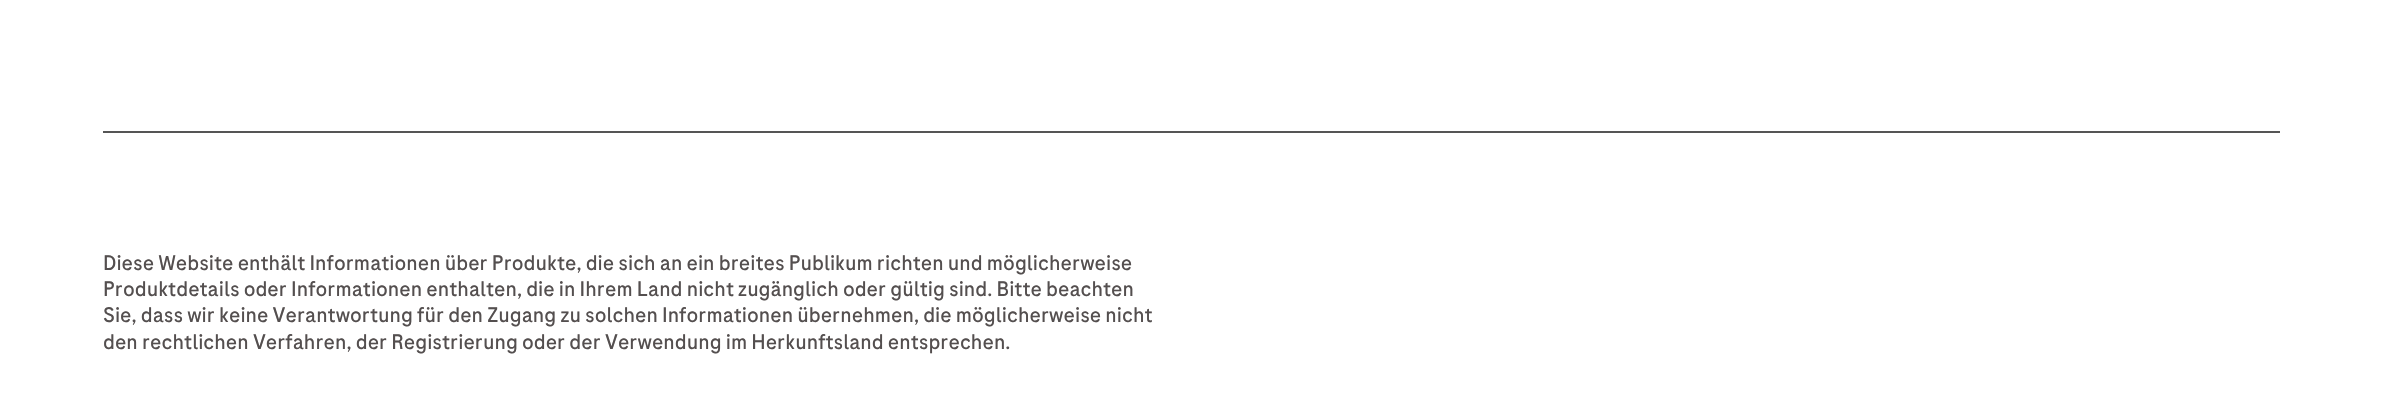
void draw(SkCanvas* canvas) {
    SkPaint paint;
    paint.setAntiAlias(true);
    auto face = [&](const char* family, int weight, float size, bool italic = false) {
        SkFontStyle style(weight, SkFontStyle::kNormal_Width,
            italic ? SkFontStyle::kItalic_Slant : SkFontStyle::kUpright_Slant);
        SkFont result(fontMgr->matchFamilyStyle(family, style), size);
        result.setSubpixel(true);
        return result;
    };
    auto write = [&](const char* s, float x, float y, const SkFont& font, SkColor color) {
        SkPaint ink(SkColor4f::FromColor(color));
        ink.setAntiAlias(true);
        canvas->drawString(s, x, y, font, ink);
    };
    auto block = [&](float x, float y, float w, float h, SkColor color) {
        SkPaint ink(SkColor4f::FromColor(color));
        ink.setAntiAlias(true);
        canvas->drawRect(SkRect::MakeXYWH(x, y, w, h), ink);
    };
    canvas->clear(SK_ColorWHITE);
    block(103, 131, 2177, 2, SkColorSetRGB(85, 85, 85));
    auto kFont1 = face("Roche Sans", 400, 21);
    write("Diese Website enthält Informationen über Produkte, die sich an ein breites Publikum richten und möglicherweise", 103, 270, kFont1, SkColorSetRGB(84, 79, 79));
    write("Produktdetails oder Informationen enthalten, die in Ihrem Land nicht zugänglich oder gültig sind. Bitte beachten", 103, 296, kFont1, SkColorSetRGB(84, 79, 79));
    write("Sie, dass wir keine Verantwortung für den Zugang zu solchen Informationen übernehmen, die möglicherweise nicht", 103, 322, kFont1, SkColorSetRGB(84, 79, 79));
    write("den rechtlichen Verfahren, der Registrierung oder der Verwendung im Herkunftsland entsprechen.", 103, 349, kFont1, SkColorSetRGB(84, 79, 79));
}
